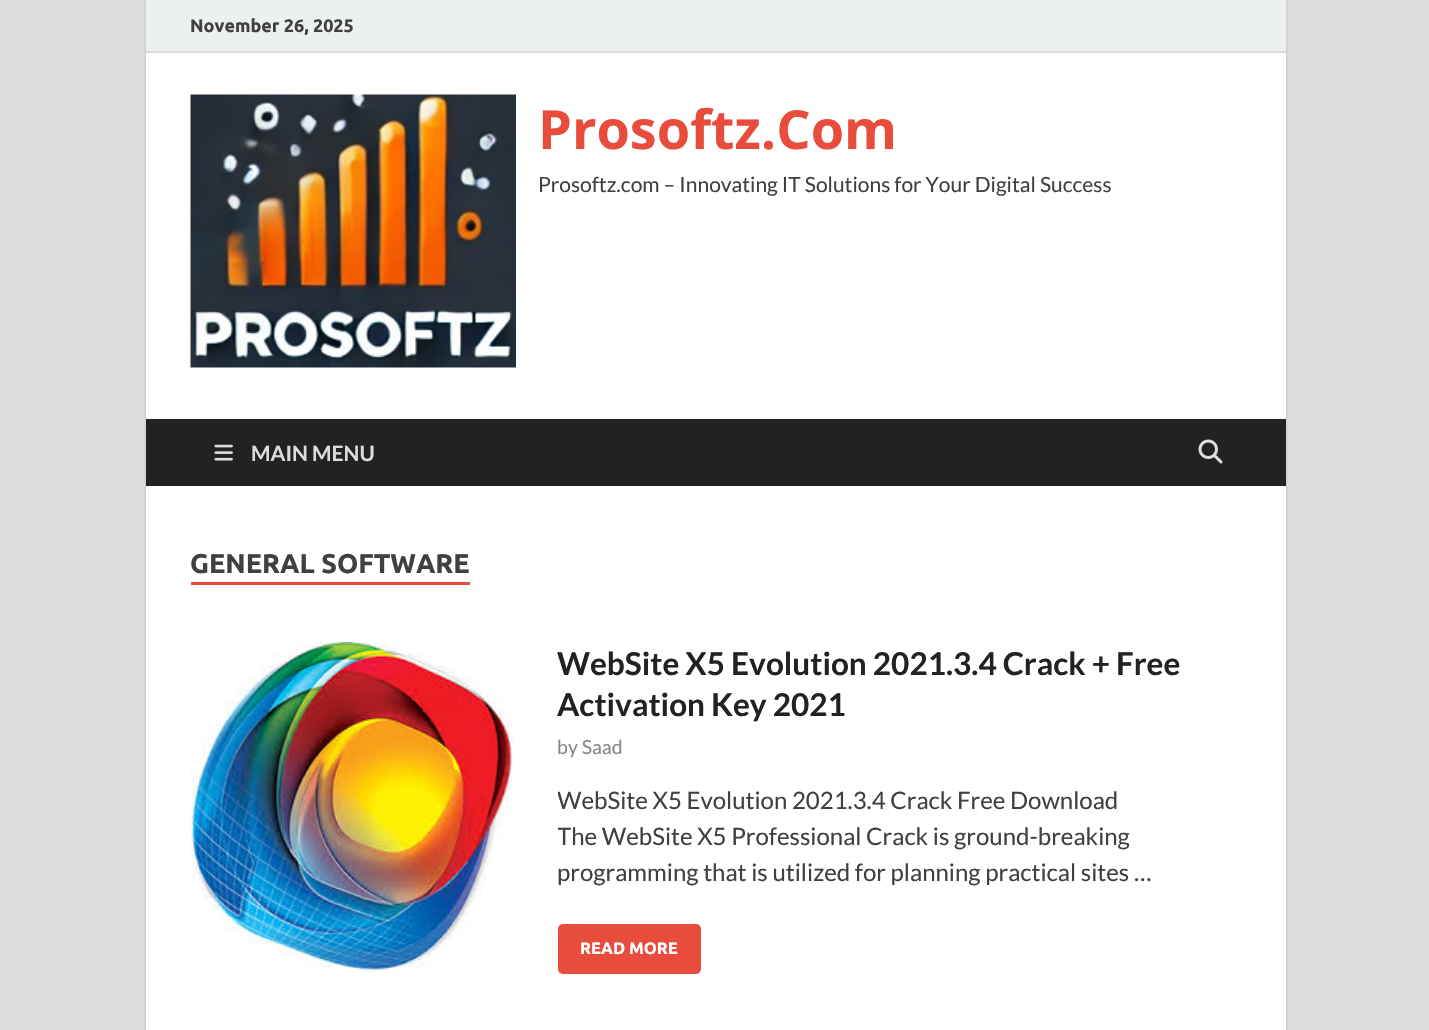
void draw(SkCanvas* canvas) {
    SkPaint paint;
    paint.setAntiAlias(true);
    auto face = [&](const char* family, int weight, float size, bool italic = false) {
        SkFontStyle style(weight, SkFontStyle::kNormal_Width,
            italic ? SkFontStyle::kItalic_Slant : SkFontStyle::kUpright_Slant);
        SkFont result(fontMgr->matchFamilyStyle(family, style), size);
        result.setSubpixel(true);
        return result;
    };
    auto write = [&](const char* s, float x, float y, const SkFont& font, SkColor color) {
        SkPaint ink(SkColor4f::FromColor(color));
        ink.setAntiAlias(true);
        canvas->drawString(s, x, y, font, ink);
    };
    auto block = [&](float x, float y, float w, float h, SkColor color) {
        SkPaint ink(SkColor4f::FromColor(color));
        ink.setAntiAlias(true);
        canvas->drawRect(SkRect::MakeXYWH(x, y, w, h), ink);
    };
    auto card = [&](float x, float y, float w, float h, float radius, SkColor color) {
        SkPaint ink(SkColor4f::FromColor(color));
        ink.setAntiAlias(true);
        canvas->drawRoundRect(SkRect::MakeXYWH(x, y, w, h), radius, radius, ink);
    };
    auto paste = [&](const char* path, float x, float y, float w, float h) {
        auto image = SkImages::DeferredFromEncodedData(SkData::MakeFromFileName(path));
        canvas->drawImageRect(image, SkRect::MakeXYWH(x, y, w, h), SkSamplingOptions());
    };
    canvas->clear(SkColorSetRGB(221, 221, 221));
    paint.setColor(SkColorSetRGB(187, 187, 187));
    paint.setMaskFilter(SkMaskFilter::MakeBlur(kNormal_SkBlurStyle, 1.5f));
    canvas->drawRect(SkRect::MakeXYWH(146, 0, 1140, 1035), paint);
    paint.setMaskFilter(nullptr);
    block(146, 53, 1140, 977, SK_ColorWHITE);
    block(146, 0, 1140, 51, SkColorSetRGB(236, 240, 241));
    block(146, 51, 1140, 2, SkColorSetRGB(221, 221, 221));
    auto kFont1 = face("Ubuntu", 700, 18);
    write("November 26, 2025", 190, 32, kFont1, SkColorSetRGB(64, 64, 64));
    paste("pic1.png", 190, 94, 326, 274);
    auto kFont2 = face("Open Sans", 700, 54);
    write("Prosoftz.Com", 538, 149, kFont2, SkColorSetRGB(231, 76, 60));
    auto kFont3 = face("Lato", 400, 21);
    write("Prosoftz.com – Innovating IT Solutions for Your Digital Success", 538, 192, kFont3, SkColorSetRGB(64, 64, 64));
    block(146, 419, 1140, 67, SkColorSetRGB(34, 34, 34));
    paste("pic2.png", 214, 444, 19, 17);
    auto kFont4 = face("Lato", 700, 21);
    write("MAIN MENU", 251, 461, kFont4, SkColorSetRGB(221, 221, 221));
    paste("pic3.png", 1198, 439, 25, 25);
    auto kFont5 = face("Ubuntu", 700, 27);
    write("GENERAL SOFTWARE", 190, 573, kFont5, SkColorSetRGB(64, 64, 64));
    block(191, 582, 279, 3, SkColorSetRGB(231, 76, 60));
    paste("pic4.png", 190, 642, 323, 330);
    auto kFont6 = face("Lato", 700, 31.5f);
    write("WebSite X5 Evolution 2021.3.4 Crack + Free", 557, 675, kFont6, SkColorSetRGB(34, 34, 34));
    write("Activation Key 2021", 557, 716, kFont6, SkColorSetRGB(34, 34, 34));
    auto kFont7 = face("Lato", 400, 19.5f);
    write("by Saad", 557, 754, kFont7, SkColorSetRGB(136, 136, 136));
    canvas->save();
    canvas->clipRect(SkRect::MakeXYWH(558, 642, 683, 356));
    auto kFont8 = face("Lato", 400, 24);
    write("WebSite X5 Evolution 2021.3.4 Crack Free Download", 557, 809, kFont8, SkColorSetRGB(64, 64, 64));
    write("The WebSite X5 Professional Crack is ground-breaking", 557, 845, kFont8, SkColorSetRGB(64, 64, 64));
    canvas->restore();
    write("programming that is utilized for planning practical sites …", 557, 881, kFont8, SkColorSetRGB(64, 64, 64));
    card(558, 924, 143, 50, 5, SkColorSetRGB(231, 76, 60));
    auto kFont9 = face("Ubuntu", 700, 16.5f);
    write("READ MORE", 580, 954, kFont9, SK_ColorWHITE);
}
